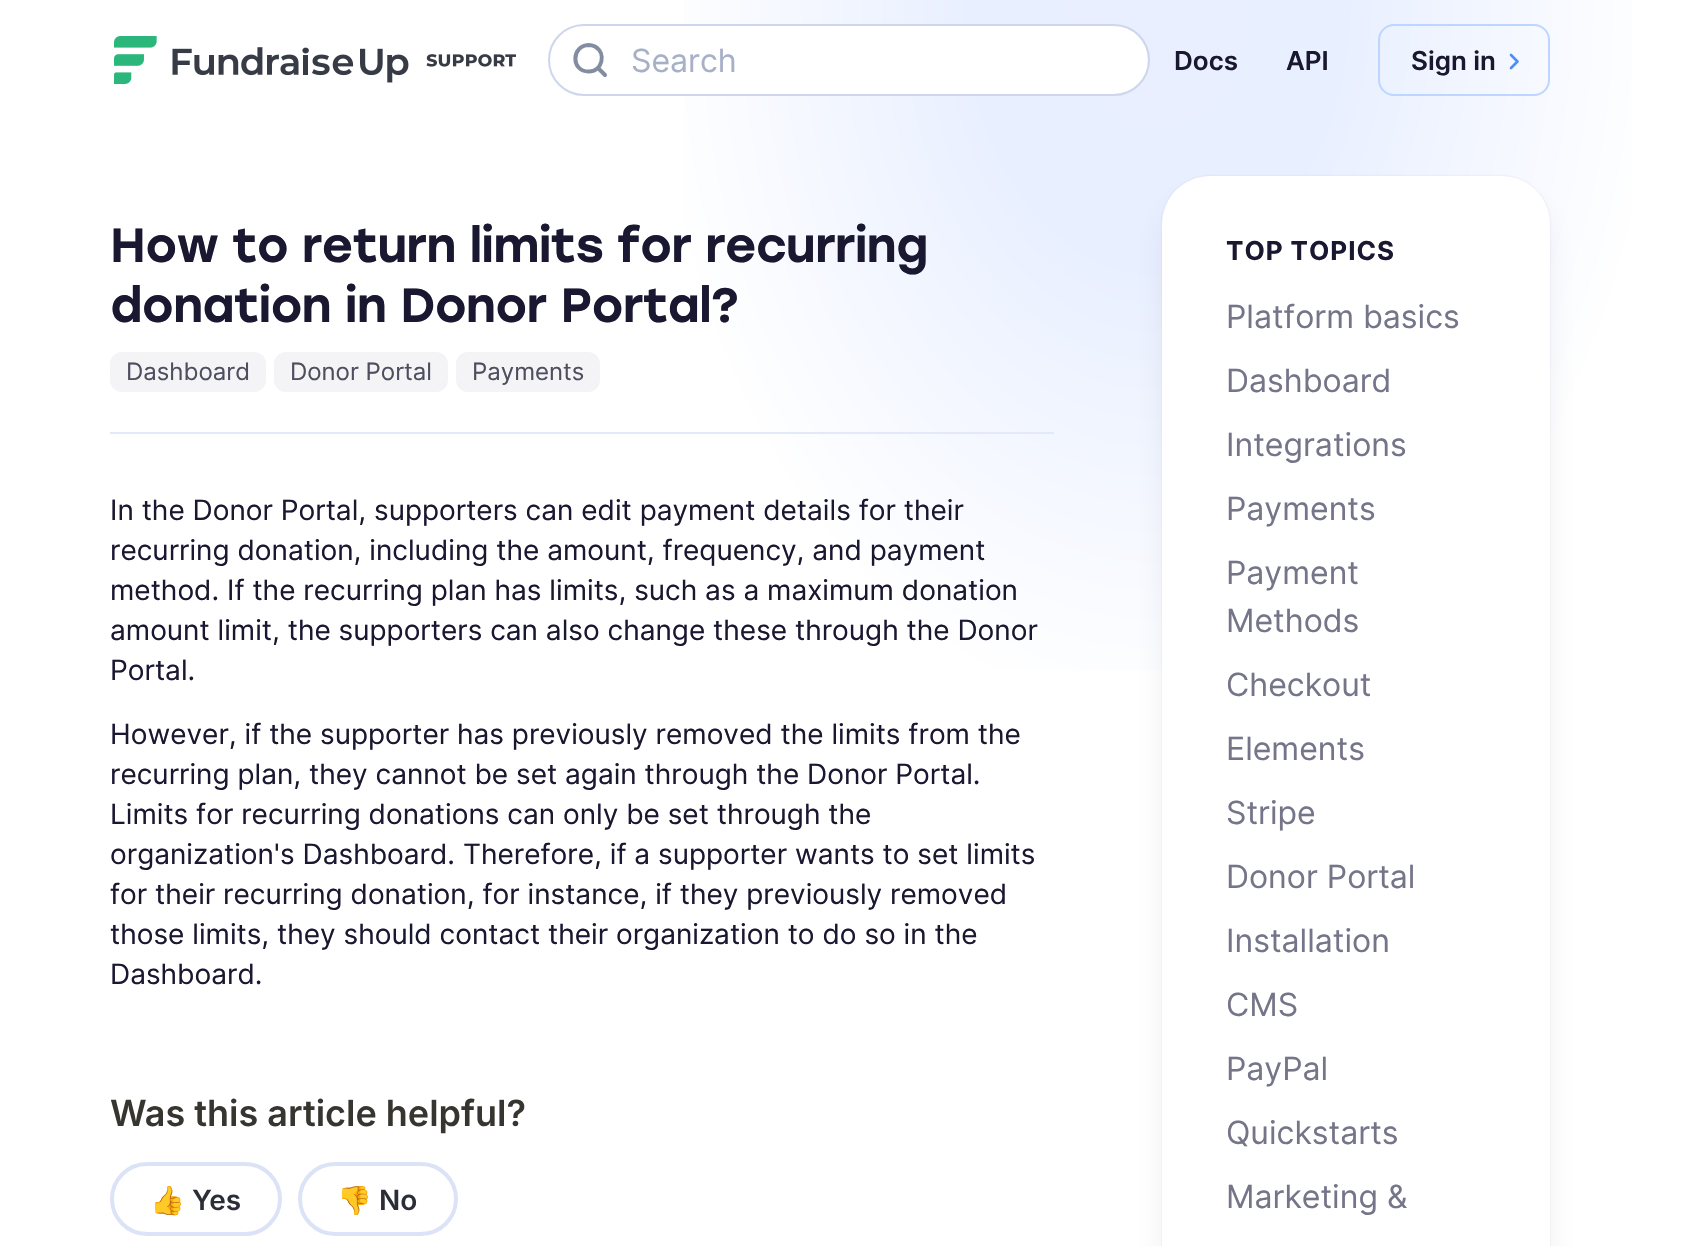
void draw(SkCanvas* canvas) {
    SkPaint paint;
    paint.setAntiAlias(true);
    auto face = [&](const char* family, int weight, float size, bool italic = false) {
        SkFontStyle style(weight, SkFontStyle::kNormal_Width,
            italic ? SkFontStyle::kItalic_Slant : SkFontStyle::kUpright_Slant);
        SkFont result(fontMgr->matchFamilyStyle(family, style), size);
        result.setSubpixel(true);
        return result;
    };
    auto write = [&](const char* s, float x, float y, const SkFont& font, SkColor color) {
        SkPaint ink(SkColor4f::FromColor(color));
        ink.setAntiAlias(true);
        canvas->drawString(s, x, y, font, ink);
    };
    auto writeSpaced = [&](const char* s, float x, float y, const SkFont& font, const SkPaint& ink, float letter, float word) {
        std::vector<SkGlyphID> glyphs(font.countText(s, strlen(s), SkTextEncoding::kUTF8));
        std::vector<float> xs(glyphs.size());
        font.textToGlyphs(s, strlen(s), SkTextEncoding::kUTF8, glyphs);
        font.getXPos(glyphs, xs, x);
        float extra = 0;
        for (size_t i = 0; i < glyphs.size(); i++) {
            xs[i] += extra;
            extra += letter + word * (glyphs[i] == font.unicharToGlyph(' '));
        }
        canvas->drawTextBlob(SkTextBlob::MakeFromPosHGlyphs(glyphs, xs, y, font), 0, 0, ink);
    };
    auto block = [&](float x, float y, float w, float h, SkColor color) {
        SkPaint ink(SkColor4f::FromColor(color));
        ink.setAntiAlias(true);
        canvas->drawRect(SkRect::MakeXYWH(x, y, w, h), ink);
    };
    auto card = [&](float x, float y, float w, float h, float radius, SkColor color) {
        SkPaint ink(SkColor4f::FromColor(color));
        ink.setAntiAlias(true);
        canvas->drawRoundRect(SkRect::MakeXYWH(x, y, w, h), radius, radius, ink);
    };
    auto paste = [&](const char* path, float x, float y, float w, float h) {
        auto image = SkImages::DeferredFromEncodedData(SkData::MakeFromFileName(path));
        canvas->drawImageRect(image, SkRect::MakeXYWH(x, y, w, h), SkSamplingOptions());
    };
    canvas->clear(SK_ColorWHITE);
    {
        const SkColor colors[] = {SkColorSetRGB(233, 239, 255), SkColorSetRGB(232, 239, 255), SK_ColorWHITE};
        const float stops[] = {0, 0.34f, 0.94f};
        SkMatrix m = SkMatrix::Translate(1157, 0).preScale(540, 766);
        paint.setShader(SkGradientShader::MakeRadial({0, 0}, 1, colors, stops, 3, SkTileMode::kClamp, 0, &m));
        paint.setAlpha(255);
    }
    canvas->drawRect(SkRect::MakeXYWH(684, 0, 948, 670), paint);
    paste("pic1.png", 114, 36, 295, 48);
    paste("pic2.png", 426, 54, 90, 13);
    card(550, 26, 598, 68, 34, SK_ColorWHITE);
    paint.setStyle(SkPaint::kStroke_Style);
    paint.setStrokeWidth(4);
    paint.setStrokeCap(SkPaint::kRound_Cap);
    paint.setStrokeJoin(SkPaint::kRound_Join);
    paint.setShader(nullptr);
    paint.setColor(SkColorSetRGB(132, 140, 161));
    canvas->drawPath(SkPathBuilder().moveTo(588.5f, 71.5f).cubicTo(602, 72, 607, 53.5f, 595, 46.5f).cubicTo(593, 45.5f, 590.5f, 45, 588.5f, 45).cubicTo(571, 46, 571, 71.5f, 588.5f, 71.5f).close().moveTo(605, 75).lineTo(598, 68).detach(), paint);
    paint.setStrokeWidth(2);
    paint.setStrokeCap(SkPaint::kButt_Cap);
    paint.setStrokeJoin(SkPaint::kMiter_Join);
    paint.setColor(SkColorSetRGB(205, 214, 236));
    canvas->drawRoundRect(SkRect::MakeXYWH(549, 25, 600, 70), 35, 35, paint);
    auto kFont1 = face("Inter", 400, 32);
    write("Search", 631, 72, kFont1, SkColorSetRGB(167, 176, 199));
    auto kFont2 = face("Inter", 600, 26);
    write("Docs", 1174, 70, kFont2, SkColorSetRGB(26, 23, 48));
    write("API", 1286, 70, kFont2, SkColorSetRGB(26, 23, 48));
    paint.setColor(SkColorSetRGB(189, 214, 255));
    canvas->drawRoundRect(SkRect::MakeXYWH(1379, 25, 170, 70), 15, 15, paint);
    write("Sign in", 1411, 70, kFont2, SkColorSetRGB(26, 23, 48));
    paint.setStrokeWidth(2.6f);
    paint.setStrokeCap(SkPaint::kRound_Cap);
    paint.setStrokeJoin(SkPaint::kRound_Join);
    paint.setColor(SkColorSetRGB(71, 142, 255));
    canvas->drawPath(SkPathBuilder().moveTo(1511, 68).lineTo(1517.5f, 61.5f).lineTo(1511, 55).detach(), paint);
    auto kFont3 = face("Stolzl", 500, 48);
    paint.setStyle(SkPaint::kFill_Style);
    paint.setColor(SkColorSetRGB(26, 23, 48));
    writeSpaced("How to return limits for recurring", 110, 262, kFont3, paint, -0.5f, 0);
    writeSpaced("donation in Donor Portal?", 110, 322, kFont3, paint, -0.5f, 0);
    card(110, 352, 156, 40, 12, SkColorSetRGB(244, 244, 247));
    auto kFont4 = face("Inter", 400, 24);
    write("Dashboard", 126, 380, kFont4, SkColorSetRGB(79, 78, 95));
    card(274, 352, 174, 40, 12, SkColorSetRGB(244, 244, 247));
    write("Donor Portal", 290, 380, kFont4, SkColorSetRGB(79, 78, 95));
    card(456, 352, 144, 40, 12, SkColorSetRGB(244, 244, 247));
    write("Payments", 472, 380, kFont4, SkColorSetRGB(79, 78, 95));
    block(110, 432, 944, 2, SkColorSetRGB(227, 233, 250));
    auto kFont5 = face("Inter", 400, 28);
    write("In the Donor Portal, supporters can edit payment details for their", 110, 520, kFont5, SkColorSetRGB(26, 23, 48));
    write("recurring donation, including the amount, frequency, and payment", 110, 560, kFont5, SkColorSetRGB(26, 23, 48));
    write("method. If the recurring plan has limits, such as a maximum donation", 110, 600, kFont5, SkColorSetRGB(26, 23, 48));
    write("amount limit, the supporters can also change these through the Donor", 110, 640, kFont5, SkColorSetRGB(26, 23, 48));
    write("Portal.", 110, 680, kFont5, SkColorSetRGB(26, 23, 48));
    write("However, if the supporter has previously removed the limits from the", 110, 744, kFont5, SkColorSetRGB(26, 23, 48));
    write("recurring plan, they cannot be set again through the Donor Portal.", 110, 784, kFont5, SkColorSetRGB(26, 23, 48));
    write("Limits for recurring donations can only be set through the", 110, 824, kFont5, SkColorSetRGB(26, 23, 48));
    write("organization's Dashboard. Therefore, if a supporter wants to set limits", 110, 864, kFont5, SkColorSetRGB(26, 23, 48));
    write("for their recurring donation, for instance, if they previously removed", 110, 904, kFont5, SkColorSetRGB(26, 23, 48));
    write("those limits, they should contact their organization to do so in the", 110, 944, kFont5, SkColorSetRGB(26, 23, 48));
    write("Dashboard.", 110, 984, kFont5, SkColorSetRGB(26, 23, 48));
    paste("pic3.png", 110, 1098, 415, 138);
    paint.setColor(SkColorSetARGB(15, 20, 37, 63));
    paint.setMaskFilter(SkMaskFilter::MakeBlur(kNormal_SkBlurStyle, 16));
    canvas->drawRoundRect(SkRect::MakeXYWH(1162, 196, 388, 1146), 48, 48, paint);
    paint.setMaskFilter(nullptr);
    paint.setColor(SkColorSetARGB(26, 12, 26, 75));
    paint.setMaskFilter(SkMaskFilter::MakeBlur(kNormal_SkBlurStyle, 1));
    canvas->drawRoundRect(SkRect::MakeXYWH(1162, 176, 388, 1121), 48, 48, paint);
    paint.setMaskFilter(nullptr);
    card(1162, 176, 388, 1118, 48, SK_ColorWHITE);
    auto kFont6 = face("Inter", 700, 26);
    paint.setColor(SkColorSetRGB(26, 23, 48));
    writeSpaced("TOP TOPICS", 1226, 260, kFont6, paint, 1, 0);
    write("Platform basics", 1226, 328, kFont1, SkColorSetRGB(117, 117, 138));
    write("Dashboard", 1226, 392, kFont1, SkColorSetRGB(117, 117, 138));
    write("Integrations", 1226, 456, kFont1, SkColorSetRGB(117, 117, 138));
    write("Payments", 1226, 520, kFont1, SkColorSetRGB(117, 117, 138));
    write("Payment", 1226, 584, kFont1, SkColorSetRGB(117, 117, 138));
    write("Methods", 1226, 632, kFont1, SkColorSetRGB(117, 117, 138));
    write("Checkout", 1226, 696, kFont1, SkColorSetRGB(117, 117, 138));
    write("Elements", 1226, 760, kFont1, SkColorSetRGB(117, 117, 138));
    write("Stripe", 1226, 824, kFont1, SkColorSetRGB(117, 117, 138));
    write("Donor Portal", 1226, 888, kFont1, SkColorSetRGB(117, 117, 138));
    write("Installation", 1226, 952, kFont1, SkColorSetRGB(117, 117, 138));
    write("CMS", 1226, 1016, kFont1, SkColorSetRGB(117, 117, 138));
    write("PayPal", 1226, 1080, kFont1, SkColorSetRGB(117, 117, 138));
    write("Quickstarts", 1226, 1144, kFont1, SkColorSetRGB(117, 117, 138));
    write("Marketing &", 1226, 1208, kFont1, SkColorSetRGB(117, 117, 138));
}
